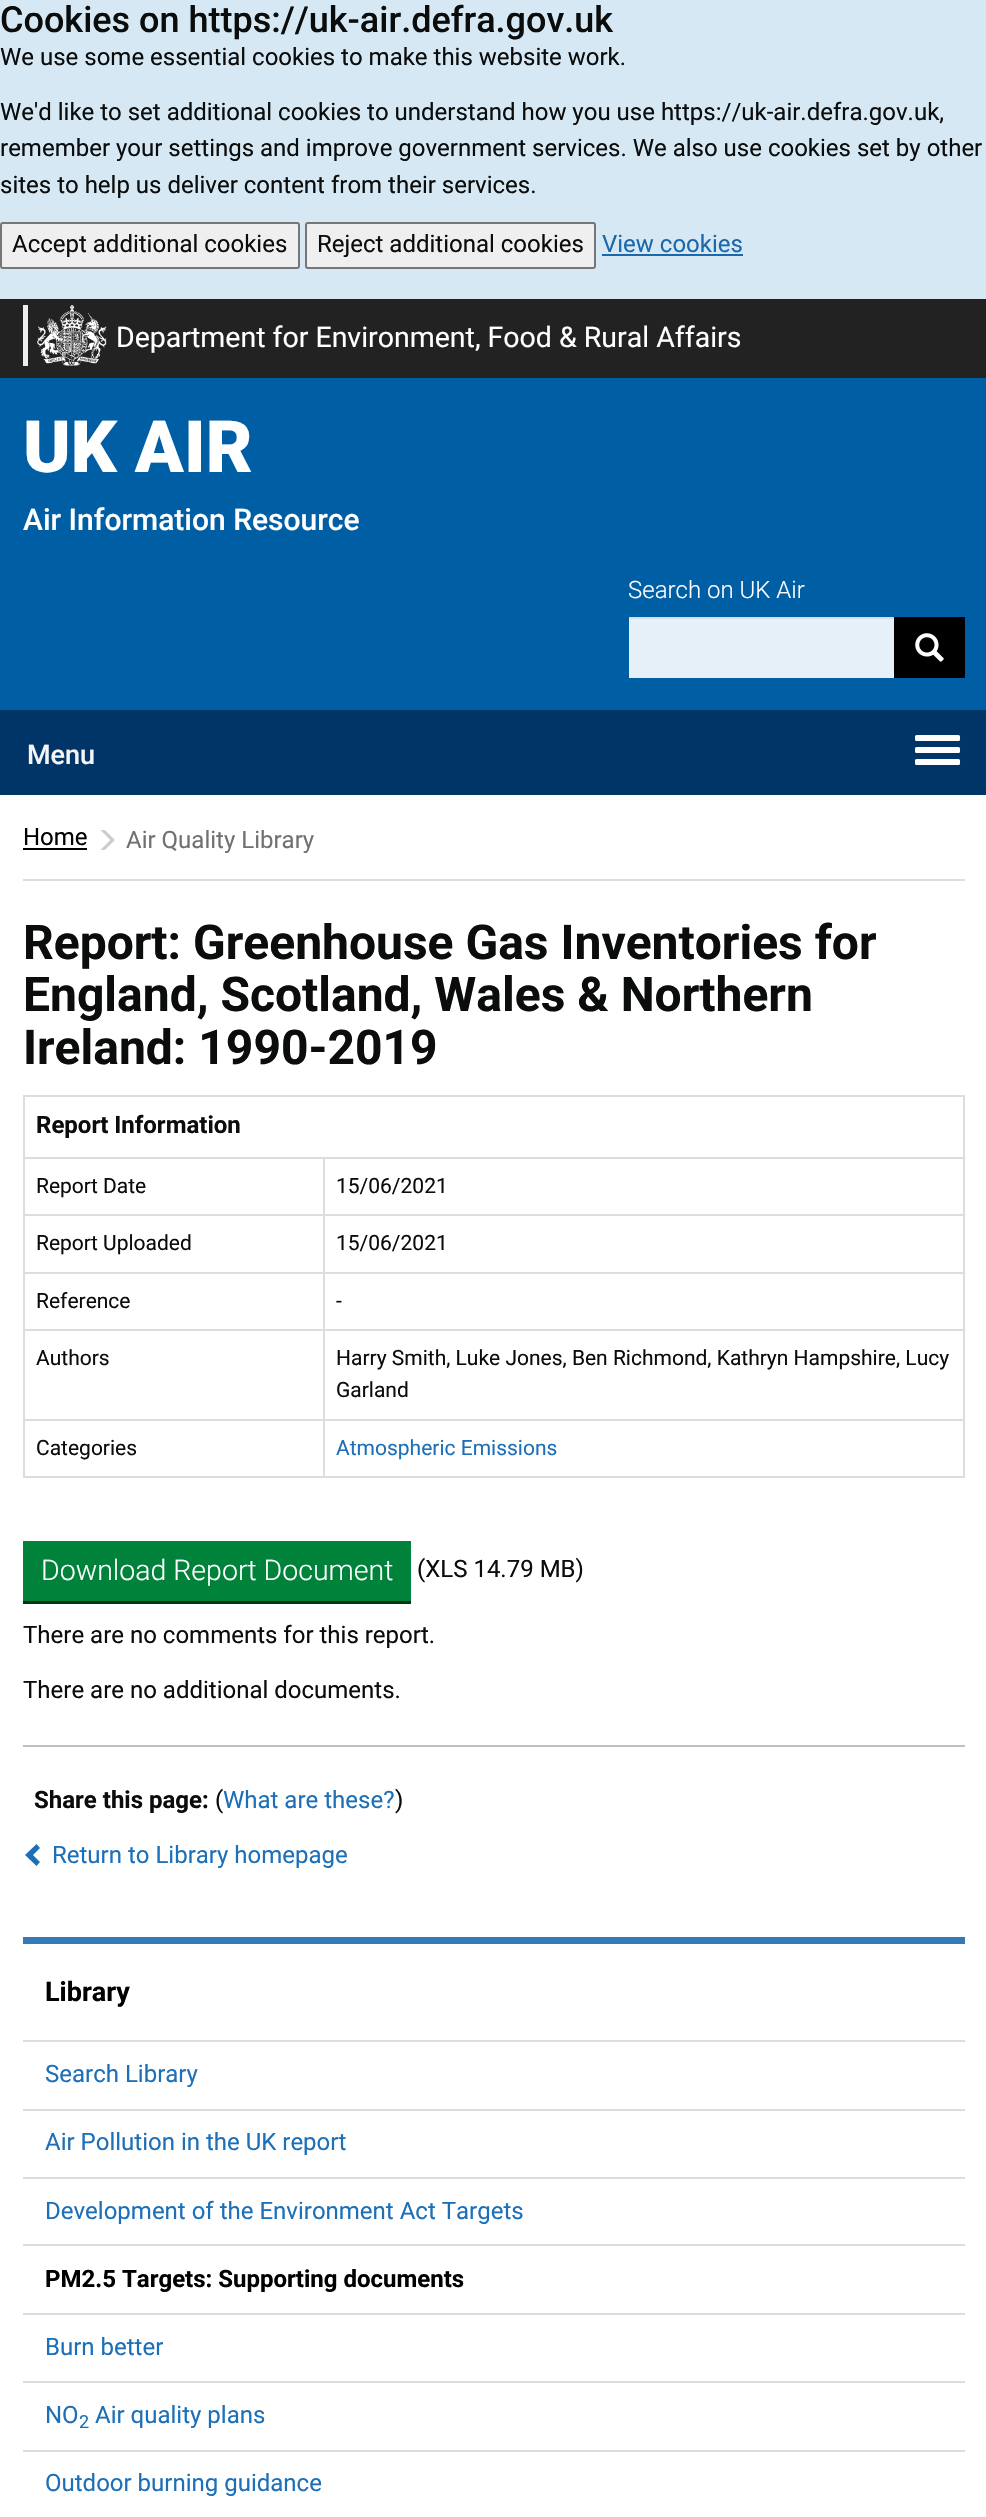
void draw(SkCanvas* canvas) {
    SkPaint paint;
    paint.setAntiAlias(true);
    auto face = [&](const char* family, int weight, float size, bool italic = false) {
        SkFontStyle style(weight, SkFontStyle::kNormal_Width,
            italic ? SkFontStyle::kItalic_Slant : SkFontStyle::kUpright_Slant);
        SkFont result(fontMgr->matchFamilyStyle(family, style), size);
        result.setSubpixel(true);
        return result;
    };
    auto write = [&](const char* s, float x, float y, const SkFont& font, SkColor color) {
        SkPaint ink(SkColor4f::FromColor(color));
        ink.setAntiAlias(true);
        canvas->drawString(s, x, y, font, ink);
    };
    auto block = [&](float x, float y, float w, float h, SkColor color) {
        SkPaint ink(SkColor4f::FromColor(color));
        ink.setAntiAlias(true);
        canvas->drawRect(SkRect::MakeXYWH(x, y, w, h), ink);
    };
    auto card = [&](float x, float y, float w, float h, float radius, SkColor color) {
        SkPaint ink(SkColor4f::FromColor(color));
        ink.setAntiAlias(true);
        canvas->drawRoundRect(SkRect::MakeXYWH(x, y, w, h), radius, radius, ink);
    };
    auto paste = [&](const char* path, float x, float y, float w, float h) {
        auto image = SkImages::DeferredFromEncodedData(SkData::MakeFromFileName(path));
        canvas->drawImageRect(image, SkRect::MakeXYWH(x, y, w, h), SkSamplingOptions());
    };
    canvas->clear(SK_ColorWHITE);
    block(0, 0, 986, 299, SkColorSetRGB(213, 232, 243));
    auto kFont1 = face("Roboto", 500, 36);
    write("Cookies on https://uk-air.defra.gov.uk", 0, 32, kFont1, SkColorSetRGB(11, 12, 12));
    auto kFont2 = face("Roboto", 400, 24);
    write("We use some essential cookies to make this website work.", 0, 65, kFont2, SkColorSetRGB(11, 12, 12));
    write("We'd like to set additional cookies to understand how you use https://uk-air.defra.gov.uk,", 0, 120, kFont2, SkColorSetRGB(11, 12, 12));
    write("remember your settings and improve government services. We also use cookies set by other", 0, 156, kFont2, SkColorSetRGB(11, 12, 12));
    write("sites to help us deliver content from their services.", 0, 193, kFont2, SkColorSetRGB(11, 12, 12));
    paint.setColor(SkColorSetRGB(239, 239, 239));
    canvas->drawRoundRect(SkRect::MakeXYWH(1, 223, 298, 45), 2, 2, paint);
    paint.setStyle(SkPaint::kStroke_Style);
    paint.setStrokeWidth(2);
    paint.setColor(SkColorSetRGB(118, 118, 118));
    canvas->drawRoundRect(SkRect::MakeXYWH(1, 223, 298, 45), 2, 2, paint);
    write("Accept additional cookies", 12, 252, kFont2, SkColorSetRGB(11, 12, 12));
    paint.setStyle(SkPaint::kFill_Style);
    paint.setColor(SkColorSetRGB(239, 239, 239));
    canvas->drawRoundRect(SkRect::MakeXYWH(306, 223, 289, 45), 2, 2, paint);
    paint.setStyle(SkPaint::kStroke_Style);
    paint.setColor(SkColorSetRGB(118, 118, 118));
    canvas->drawRoundRect(SkRect::MakeXYWH(306, 223, 289, 45), 2, 2, paint);
    write("Reject additional cookies", 317, 252, kFont2, SkColorSetRGB(11, 12, 12));
    write("View cookies", 602, 252, kFont2, SkColorSetRGB(27, 104, 172));
    block(602, 254, 141, 2, SkColorSetRGB(27, 104, 172));
    block(0, 299, 986, 79, SkColorSetRGB(34, 34, 34));
    block(23, 305, 5, 61, SkColorSetRGB(238, 238, 238));
    paste("pic1.png", 37, 305, 70, 61);
    auto kFont3 = face("Roboto", 400, 28.5f);
    write("Department for Environment, Food & Rural Affairs", 116, 347, kFont3, SK_ColorWHITE);
    block(0, 378, 986, 332, SkColorSetRGB(0, 94, 165));
    auto kFont4 = face("Roboto", 900, 72);
    write("UK AIR", 23, 472, kFont4, SK_ColorWHITE);
    auto kFont5 = face("Roboto", 500, 30);
    write("Air Information Resource", 23, 530, kFont5, SK_ColorWHITE);
    auto kFont6 = face("Roboto", 300, 24);
    write("Search on UK Air", 628, 598, kFont6, SK_ColorWHITE);
    block(629, 619, 265, 59, SkColorSetRGB(229, 240, 248));
    block(629, 617, 267, 2, SkColorSetRGB(212, 222, 229));
    block(894, 617, 71, 61, SK_ColorBLACK);
    paste("pic2.png", 915, 633, 29, 29);
    block(0, 710, 986, 85, SkColorSetRGB(1, 53, 103));
    auto kFont7 = face("Roboto", 500, 27);
    write("Menu", 27, 764, kFont7, SkColorSetRGB(245, 245, 245));
    card(915, 735, 45, 6, 1.5f, SK_ColorWHITE);
    card(915, 747, 45, 6, 1.5f, SK_ColorWHITE);
    card(915, 759, 45, 6, 1.5f, SK_ColorWHITE);
    block(23, 879, 942, 2, SkColorSetRGB(221, 221, 221));
    write("Home", 23, 845, kFont2, SK_ColorBLACK);
    block(23, 848, 64, 2, SK_ColorBLACK);
    paste("pic3.png", 101, 830, 14, 20);
    write("Air Quality Library", 126, 848, kFont2, SkColorSetRGB(114, 113, 113));
    auto kFont8 = face("Roboto", 700, 48);
    write("Report: Greenhouse Gas Inventories for", 23, 959, kFont8, SkColorSetRGB(11, 12, 12));
    write("England, Scotland, Wales & Northern", 23, 1011, kFont8, SkColorSetRGB(11, 12, 12));
    write("Ireland: 1990-2019", 23, 1064, kFont8, SkColorSetRGB(11, 12, 12));
    block(23, 1095, 942, 2, SkColorSetRGB(221, 221, 221));
    block(963, 1095, 2, 383, SkColorSetRGB(221, 221, 221));
    block(23, 1476, 942, 2, SkColorSetRGB(221, 221, 221));
    block(23, 1095, 2, 383, SkColorSetRGB(221, 221, 221));
    auto kFont9 = face("Roboto", 700, 24);
    write("Report Information", 36, 1133, kFont9, SkColorSetRGB(11, 12, 12));
    block(323, 1157, 642, 2, SkColorSetRGB(221, 221, 221));
    block(323, 1214, 642, 2, SkColorSetRGB(221, 221, 221));
    block(323, 1272, 642, 2, SkColorSetRGB(221, 221, 221));
    block(323, 1329, 642, 2, SkColorSetRGB(221, 221, 221));
    block(323, 1419, 642, 2, SkColorSetRGB(221, 221, 221));
    block(323, 1419, 2, 59, SkColorSetRGB(221, 221, 221));
    block(23, 1419, 301, 2, SkColorSetRGB(221, 221, 221));
    block(323, 1329, 2, 92, SkColorSetRGB(221, 221, 221));
    block(23, 1329, 301, 2, SkColorSetRGB(221, 221, 221));
    block(323, 1272, 2, 59, SkColorSetRGB(221, 221, 221));
    block(23, 1272, 301, 2, SkColorSetRGB(221, 221, 221));
    block(323, 1214, 2, 60, SkColorSetRGB(221, 221, 221));
    block(23, 1214, 301, 2, SkColorSetRGB(221, 221, 221));
    block(323, 1157, 2, 58, SkColorSetRGB(221, 221, 221));
    block(23, 1157, 301, 2, SkColorSetRGB(221, 221, 221));
    auto kFont10 = face("Roboto", 400, 21);
    write("Report Date", 36, 1193, kFont10, SkColorSetRGB(11, 12, 12));
    write("15/06/2021", 336, 1193, kFont10, SkColorSetRGB(11, 12, 12));
    write("Report Uploaded", 36, 1250, kFont10, SkColorSetRGB(11, 12, 12));
    write("15/06/2021", 336, 1250, kFont10, SkColorSetRGB(11, 12, 12));
    write("Reference", 36, 1308, kFont10, SkColorSetRGB(11, 12, 12));
    write("-", 336, 1308, kFont10, SkColorSetRGB(11, 12, 12));
    write("Authors", 36, 1365, kFont10, SkColorSetRGB(11, 12, 12));
    write("Harry Smith, Luke Jones, Ben Richmond, Kathryn Hampshire, Lucy", 336, 1365, kFont10, SkColorSetRGB(11, 12, 12));
    write("Garland", 336, 1397, kFont10, SkColorSetRGB(11, 12, 12));
    write("Categories", 36, 1455, kFont10, SkColorSetRGB(11, 12, 12));
    write("Atmospheric Emissions", 336, 1455, kFont10, SkColorSetRGB(29, 112, 184));
    block(23, 1601, 388, 3, SkColorSetRGB(0, 54, 24));
    block(23, 1541, 388, 60, SkColorSetRGB(0, 130, 59));
    auto kFont11 = face("Roboto", 300, 28.5f);
    write("Download Report Document", 41, 1580, kFont11, SK_ColorWHITE);
    write("(XLS 14.79 MB)", 417, 1577, kFont2, SkColorSetRGB(11, 12, 12));
    write("There are no comments for this report.", 23, 1643, kFont2, SkColorSetRGB(11, 12, 12));
    write("There are no additional documents.", 23, 1698, kFont2, SkColorSetRGB(11, 12, 12));
    block(23, 1745, 942, 2, SkColorSetRGB(191, 191, 191));
    write("Share this page:", 34, 1808, kFont9, SkColorSetRGB(11, 12, 12));
    write("(", 215, 1808, kFont2, SkColorSetRGB(11, 12, 12));
    write("What are these?", 223, 1808, kFont2, SkColorSetRGB(29, 112, 184));
    write(")", 395, 1808, kFont2, SkColorSetRGB(11, 12, 12));
    paint.setStyle(SkPaint::kFill_Style);
    paint.setColor(SkColorSetRGB(29, 112, 184));
    canvas->drawPath(SkPathBuilder().moveTo(40, 1848).lineTo(33, 1855).lineTo(40, 1862).lineTo(36.5f, 1866).lineTo(25, 1855).lineTo(36.5f, 1844).close().detach(), paint);
    write("Return to Library homepage", 52, 1863, kFont2, SkColorSetRGB(29, 112, 184));
    block(23, 1937, 942, 7, SkColorSetRGB(51, 122, 183));
    auto kFont12 = face("Roboto", 700, 27);
    write("Library", 45, 2001, kFont12, SK_ColorBLACK);
    block(23, 2040, 942, 2, SkColorSetRGB(221, 221, 221));
    write("Search Library", 45, 2082, kFont2, SkColorSetRGB(29, 112, 184));
    block(23, 2109, 942, 2, SkColorSetRGB(221, 221, 221));
    write("Air Pollution in the UK report", 45, 2150, kFont2, SkColorSetRGB(29, 112, 184));
    block(23, 2177, 942, 2, SkColorSetRGB(221, 221, 221));
    write("Development of the Environment Act Targets", 45, 2219, kFont2, SkColorSetRGB(29, 112, 184));
    block(23, 2244, 942, 2, SkColorSetRGB(221, 221, 221));
    write("PM2.5 Targets: Supporting documents", 45, 2287, kFont9, SK_ColorBLACK);
    block(23, 2313, 942, 2, SkColorSetRGB(221, 221, 221));
    write("Burn better", 45, 2355, kFont2, SkColorSetRGB(29, 112, 184));
    block(23, 2381, 942, 2, SkColorSetRGB(221, 221, 221));
    write("NO", 45, 2423, kFont2, SkColorSetRGB(29, 112, 184));
    auto kFont13 = face("Roboto", 400, 18);
    write("2", 79, 2428, kFont13, SkColorSetRGB(29, 112, 184));
    write("Air quality plans", 95, 2423, kFont2, SkColorSetRGB(29, 112, 184));
    block(23, 2450, 942, 2, SkColorSetRGB(221, 221, 221));
    write("Outdoor burning guidance", 45, 2491, kFont2, SkColorSetRGB(29, 112, 184));
}
